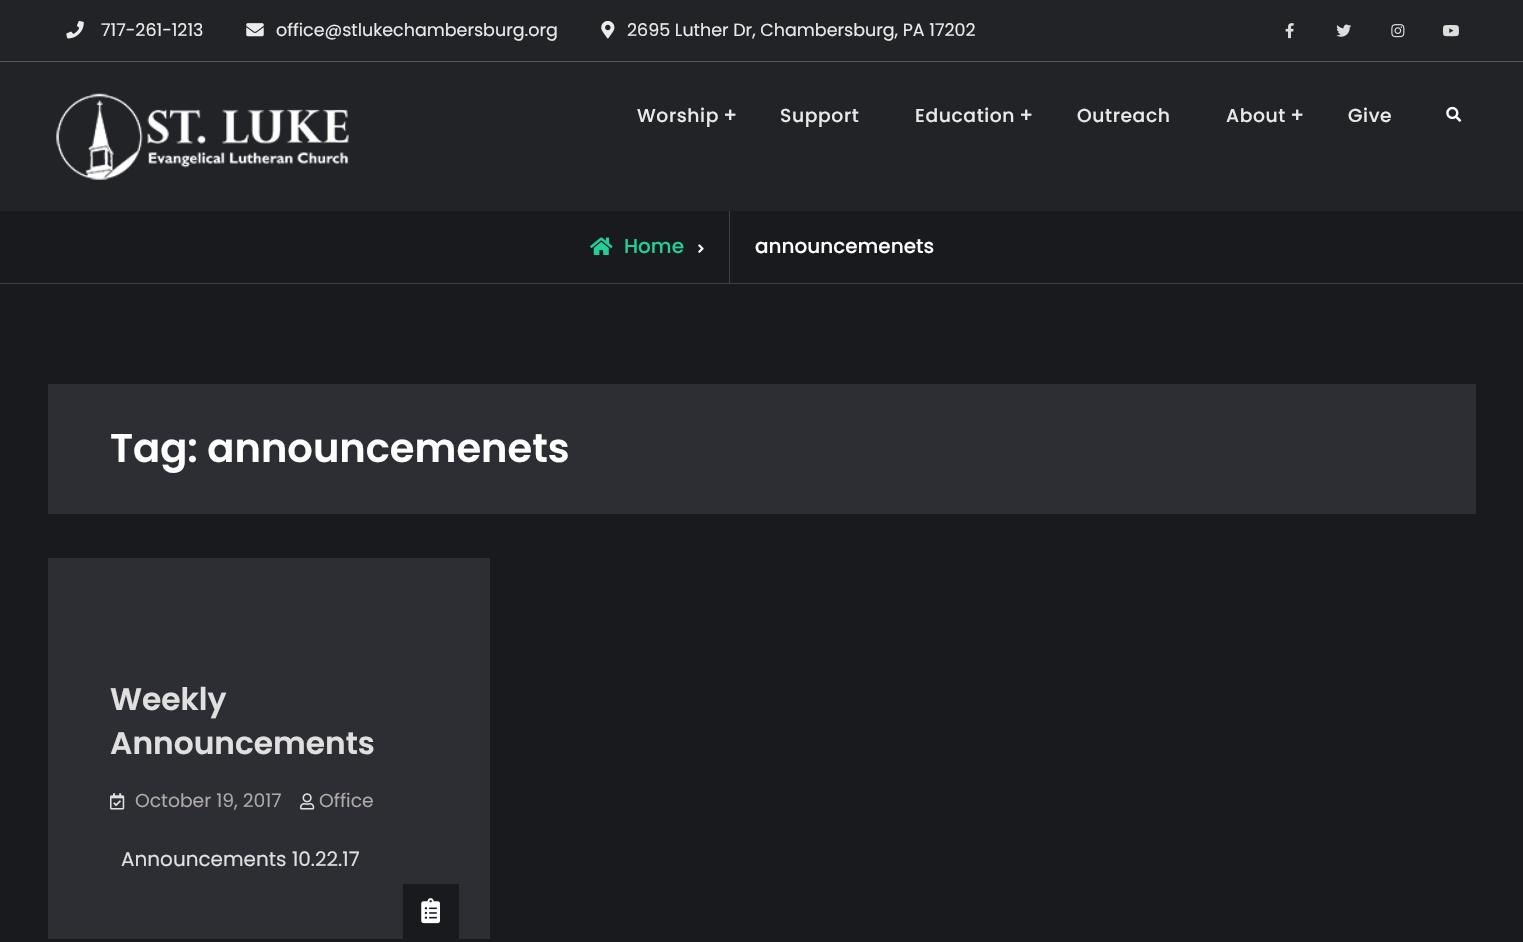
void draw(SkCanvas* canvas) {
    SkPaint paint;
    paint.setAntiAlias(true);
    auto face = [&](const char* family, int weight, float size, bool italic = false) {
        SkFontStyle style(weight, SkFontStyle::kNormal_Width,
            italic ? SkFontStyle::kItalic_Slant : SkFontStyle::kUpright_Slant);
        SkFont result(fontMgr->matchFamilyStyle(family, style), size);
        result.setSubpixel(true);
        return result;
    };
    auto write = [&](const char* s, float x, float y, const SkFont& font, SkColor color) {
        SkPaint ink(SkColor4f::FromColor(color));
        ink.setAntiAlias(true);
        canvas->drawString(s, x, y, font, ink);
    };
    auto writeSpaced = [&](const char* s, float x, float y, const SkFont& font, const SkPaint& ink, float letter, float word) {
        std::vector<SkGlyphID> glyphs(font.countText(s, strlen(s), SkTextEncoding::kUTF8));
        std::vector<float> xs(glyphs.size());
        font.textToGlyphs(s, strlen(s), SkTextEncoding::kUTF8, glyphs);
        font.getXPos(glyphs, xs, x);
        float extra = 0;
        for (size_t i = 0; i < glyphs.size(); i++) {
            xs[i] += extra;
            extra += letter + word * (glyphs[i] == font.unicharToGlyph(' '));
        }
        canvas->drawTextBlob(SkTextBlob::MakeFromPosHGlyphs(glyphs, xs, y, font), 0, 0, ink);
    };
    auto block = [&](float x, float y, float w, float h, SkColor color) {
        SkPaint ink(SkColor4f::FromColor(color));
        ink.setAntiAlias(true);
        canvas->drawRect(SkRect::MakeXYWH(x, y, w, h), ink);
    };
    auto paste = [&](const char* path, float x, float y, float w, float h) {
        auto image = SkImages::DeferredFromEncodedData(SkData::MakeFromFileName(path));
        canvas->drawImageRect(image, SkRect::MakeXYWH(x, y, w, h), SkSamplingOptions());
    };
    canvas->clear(SkColorSetRGB(25, 26, 30));
    block(0, 0, 1523, 211, SkColorSetRGB(33, 35, 39));
    block(0, 61, 1523, 1, SkColorSetRGB(88, 89, 92));
    paste("pic1.png", 66, 21, 18, 18);
    auto kFont1 = face("Poppins", 400, 17.5f);
    write("717-261-1213", 101, 36, kFont1, SkColorSetRGB(234, 234, 234));
    paste("pic2.png", 246, 23, 18, 14);
    write("office@stlukechambersburg.org", 276, 36, kFont1, SkColorSetRGB(234, 234, 234));
    paste("pic3.png", 601, 20, 14, 19);
    write("2695 Luther Dr, Chambersburg, PA 17202", 627, 36, kFont1, SkColorSetRGB(234, 234, 234));
    paste("pic4.png", 1285, 23, 9, 16);
    paste("pic5.png", 1336, 24, 16, 13);
    paste("pic6.png", 1391, 24, 14, 14);
    paste("pic7.png", 1442, 25, 17, 12);
    paste("pic8.png", 56, 93, 293, 87);
    auto kFont2 = face("Poppins", 500, 18.75f);
    paint.setColor(SkColorSetRGB(234, 234, 234));
    writeSpaced("Worship", 637, 122, kFont2, paint, 0.6f, 0);
    auto kFont3 = face("Poppins", 500, 20);
    writeSpaced("+", 723, 122, kFont3, paint, 0.6f, 0);
    writeSpaced("Support", 780, 122, kFont2, paint, 0.6f, 0);
    writeSpaced("Education", 915, 122, kFont2, paint, 0.6f, 0);
    writeSpaced("+", 1019, 122, kFont3, paint, 0.6f, 0);
    writeSpaced("Outreach", 1077, 122, kFont2, paint, 0.6f, 0);
    writeSpaced("About", 1226, 122, kFont2, paint, 0.6f, 0);
    writeSpaced("+", 1290, 122, kFont3, paint, 0.6f, 0);
    writeSpaced("Give", 1348, 122, kFont2, paint, 0.6f, 0);
    paste("pic9.png", 1446, 106, 16, 16);
    block(0, 283, 1523, 1, SkColorSetRGB(62, 63, 66));
    block(729, 211, 1, 72, SkColorSetRGB(66, 67, 70));
    paste("pic10.png", 590, 237, 23, 18);
    write("Home", 624, 253, kFont3, SkColorSetRGB(34, 208, 149));
    paste("pic11.png", 698, 244, 6, 9);
    write("announcemenets", 755, 253, kFont3, SK_ColorWHITE);
    block(48, 384, 1428, 130, SkColorSetRGB(44, 46, 51));
    auto kFont4 = face("Poppins", 600, 40);
    write("Tag: announcemenets", 110, 462, kFont4, SK_ColorWHITE);
    block(48, 558, 442, 381, SkColorSetRGB(44, 46, 51));
    auto kFont5 = face("Poppins", 600, 31.25f);
    write("Weekly", 110, 710, kFont5, SkColorSetRGB(224, 224, 224));
    write("Announcements", 110, 754, kFont5, SkColorSetRGB(224, 224, 224));
    paste("pic12.png", 110, 793, 15, 17);
    auto kFont6 = face("Poppins", 400, 18.75f);
    write("October 19, 2017", 135, 807, kFont6, SkColorSetRGB(173, 169, 169));
    paste("pic13.png", 300, 793, 15, 17);
    write("Office", 319, 807, kFont6, SkColorSetRGB(173, 169, 169));
    auto kFont7 = face("Poppins", 400, 20);
    write("Announcements 10.22.17", 121, 866, kFont7, SkColorSetRGB(224, 224, 224));
    block(403, 884, 56, 55, SkColorSetRGB(25, 26, 30));
    paste("pic14.png", 421, 898, 19, 26);
}
